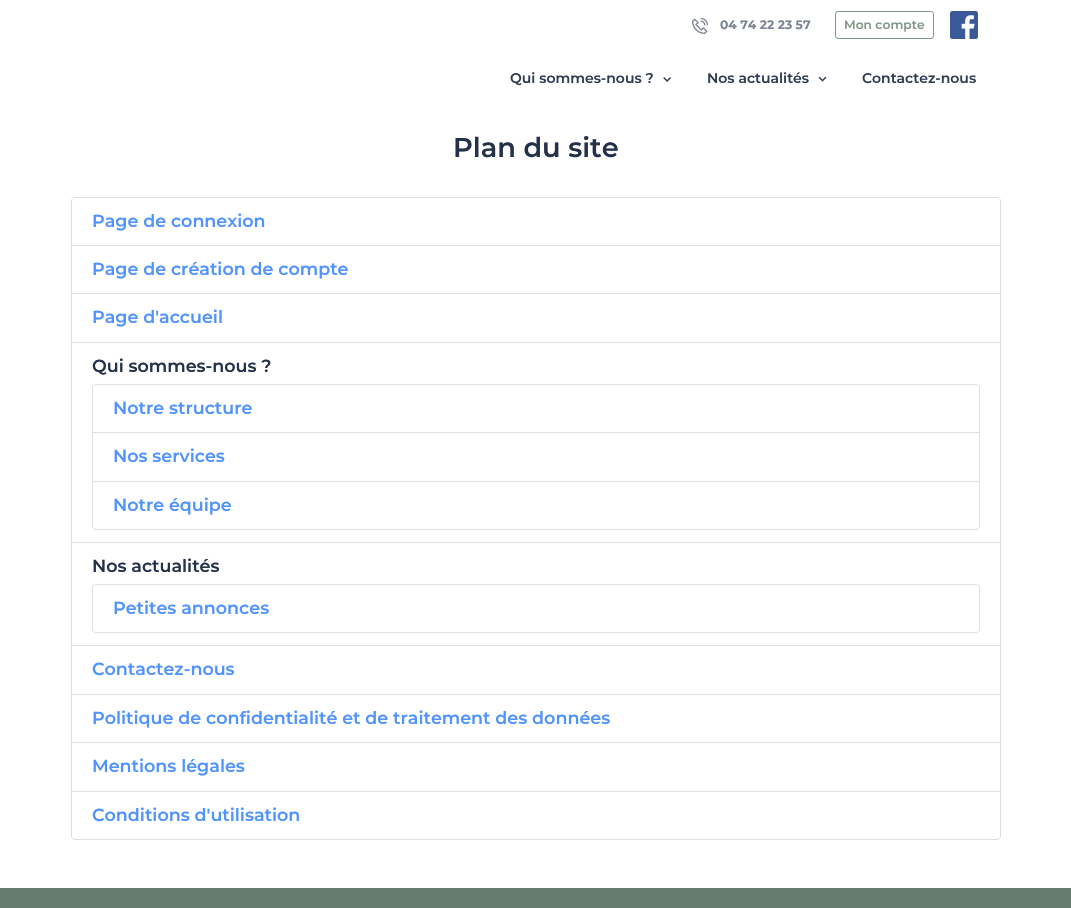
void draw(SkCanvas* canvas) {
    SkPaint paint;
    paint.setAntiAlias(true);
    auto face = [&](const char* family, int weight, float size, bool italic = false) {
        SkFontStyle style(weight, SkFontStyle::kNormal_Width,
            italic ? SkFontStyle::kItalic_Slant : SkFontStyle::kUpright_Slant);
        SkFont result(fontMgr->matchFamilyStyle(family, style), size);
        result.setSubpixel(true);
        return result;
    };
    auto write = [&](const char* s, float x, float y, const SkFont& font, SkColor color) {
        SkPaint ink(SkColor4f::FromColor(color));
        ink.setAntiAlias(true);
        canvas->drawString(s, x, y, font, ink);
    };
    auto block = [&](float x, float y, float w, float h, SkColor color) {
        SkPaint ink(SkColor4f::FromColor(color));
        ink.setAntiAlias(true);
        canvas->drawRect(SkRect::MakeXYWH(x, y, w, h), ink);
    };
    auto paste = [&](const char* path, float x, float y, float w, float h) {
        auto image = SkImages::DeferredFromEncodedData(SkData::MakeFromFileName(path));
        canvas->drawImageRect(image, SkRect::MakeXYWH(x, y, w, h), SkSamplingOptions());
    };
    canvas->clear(SK_ColorWHITE);
    paste("pic1.png", 692, 18, 16, 16);
    auto kFont1 = face("Montserrat", 700, 12.25f);
    write("04 74 22 23 57", 720, 29, kFont1, SkColorSetRGB(124, 132, 146));
    paint.setStyle(SkPaint::kStroke_Style);
    paint.setStrokeWidth(1);
    paint.setColor(SkColorSetRGB(131, 151, 136));
    canvas->drawRoundRect(SkRect::MakeXYWH(835.5f, 11.5f, 98, 27), 2.5f, 2.5f, paint);
    auto kFont2 = face("Montserrat", 600, 12.25f);
    write("Mon compte", 844, 29, kFont2, SkColorSetRGB(131, 151, 136));
    paste("pic2.png", 950, 11, 28, 28);
    auto kFont3 = face("Montserrat", 600, 14);
    write("Qui sommes-nous ?", 510, 83, kFont3, SkColorSetRGB(47, 61, 82));
    paste("pic3.png", 663, 77, 8, 5);
    write("Nos actualités", 707, 83, kFont3, SkColorSetRGB(47, 61, 82));
    paste("pic4.png", 818, 76, 9, 6);
    write("Contactez-nous", 862, 83, kFont3, SkColorSetRGB(47, 61, 82));
    auto kFont4 = face("Montserrat", 600, 27.25f);
    write("Plan du site", 453, 157, kFont4, SkColorSetRGB(36, 50, 73));
    paint.setColor(SkColorSetRGB(223, 223, 223));
    canvas->drawPath(SkPathBuilder().moveTo(75, 197.5f).lineTo(997, 197.5f).cubicTo(999, 197.5f, 1000.5f, 199, 1000.5f, 201).lineTo(1000.5f, 245.5f).lineTo(71.5f, 245.5f).lineTo(71.5f, 201).cubicTo(71.5f, 199, 73, 197.5f, 75, 197.5f).close().detach(), paint);
    auto kFont5 = face("Montserrat", 600, 17.5f);
    write("Page de connexion", 92, 227, kFont5, SkColorSetRGB(80, 147, 255));
    canvas->drawRect(SkRect::MakeXYWH(71.5f, 245.5f, 929, 48), paint);
    write("Page de création de compte", 92, 275, kFont5, SkColorSetRGB(80, 147, 255));
    canvas->drawRect(SkRect::MakeXYWH(71.5f, 293.5f, 929, 49), paint);
    write("Page d'accueil", 92, 323, kFont5, SkColorSetRGB(80, 147, 255));
    canvas->drawRect(SkRect::MakeXYWH(71.5f, 342.5f, 929, 200), paint);
    write("Qui sommes-nous ?", 92, 372, kFont5, SkColorSetRGB(36, 50, 73));
    canvas->drawPath(SkPathBuilder().moveTo(96, 384.5f).lineTo(976, 384.5f).cubicTo(978, 384.5f, 979.5f, 386, 979.5f, 388).lineTo(979.5f, 432.5f).lineTo(92.5f, 432.5f).lineTo(92.5f, 388).cubicTo(92.5f, 386, 94, 384.5f, 96, 384.5f).close().detach(), paint);
    write("Notre structure", 113, 414, kFont5, SkColorSetRGB(80, 147, 255));
    canvas->drawRect(SkRect::MakeXYWH(92.5f, 432.5f, 887, 49), paint);
    write("Nos services", 113, 462, kFont5, SkColorSetRGB(80, 147, 255));
    paint.setStyle(SkPaint::kFill_Style);
    paint.setColor(SK_ColorWHITE);
    canvas->drawPath(SkPathBuilder().moveTo(92.5f, 481.5f).lineTo(979.5f, 481.5f).lineTo(979.5f, 526).cubicTo(979.5f, 528, 978, 529.5f, 976, 529.5f).lineTo(96, 529.5f).cubicTo(94, 529.5f, 92.5f, 528, 92.5f, 526).close().detach(), paint);
    paint.setStyle(SkPaint::kStroke_Style);
    paint.setColor(SkColorSetRGB(223, 223, 223));
    canvas->drawPath(SkPathBuilder().moveTo(92.5f, 481.5f).lineTo(979.5f, 481.5f).lineTo(979.5f, 526).cubicTo(979.5f, 528, 978, 529.5f, 976, 529.5f).lineTo(96, 529.5f).cubicTo(94, 529.5f, 92.5f, 528, 92.5f, 526).close().detach(), paint);
    write("Notre équipe", 113, 511, kFont5, SkColorSetRGB(80, 147, 255));
    canvas->drawRect(SkRect::MakeXYWH(71.5f, 542.5f, 929, 103), paint);
    write("Nos actualités", 92, 572, kFont5, SkColorSetRGB(36, 50, 73));
    canvas->drawRoundRect(SkRect::MakeXYWH(92.5f, 584.5f, 887, 48), 3.5f, 3.5f, paint);
    write("Petites annonces", 113, 614, kFont5, SkColorSetRGB(80, 147, 255));
    canvas->drawRect(SkRect::MakeXYWH(71.5f, 645.5f, 929, 49), paint);
    write("Contactez-nous", 92, 675, kFont5, SkColorSetRGB(80, 147, 255));
    canvas->drawRect(SkRect::MakeXYWH(71.5f, 694.5f, 929, 48), paint);
    write("Politique de confidentialité et de traitement des données", 92, 724, kFont5, SkColorSetRGB(80, 147, 255));
    canvas->drawRect(SkRect::MakeXYWH(71.5f, 742.5f, 929, 49), paint);
    write("Mentions légales", 92, 772, kFont5, SkColorSetRGB(80, 147, 255));
    paint.setStyle(SkPaint::kFill_Style);
    paint.setColor(SK_ColorWHITE);
    canvas->drawPath(SkPathBuilder().moveTo(71.5f, 791.5f).lineTo(1000.5f, 791.5f).lineTo(1000.5f, 836).cubicTo(1000.5f, 838, 999, 839.5f, 997, 839.5f).lineTo(75, 839.5f).cubicTo(73, 839.5f, 71.5f, 838, 71.5f, 836).close().detach(), paint);
    paint.setStyle(SkPaint::kStroke_Style);
    paint.setColor(SkColorSetRGB(223, 223, 223));
    canvas->drawPath(SkPathBuilder().moveTo(71.5f, 791.5f).lineTo(1000.5f, 791.5f).lineTo(1000.5f, 836).cubicTo(1000.5f, 838, 999, 839.5f, 997, 839.5f).lineTo(75, 839.5f).cubicTo(73, 839.5f, 71.5f, 838, 71.5f, 836).close().detach(), paint);
    write("Conditions d'utilisation", 92, 821, kFont5, SkColorSetRGB(80, 147, 255));
    block(0, 888, 1071, 20, SkColorSetRGB(103, 124, 108));
}
